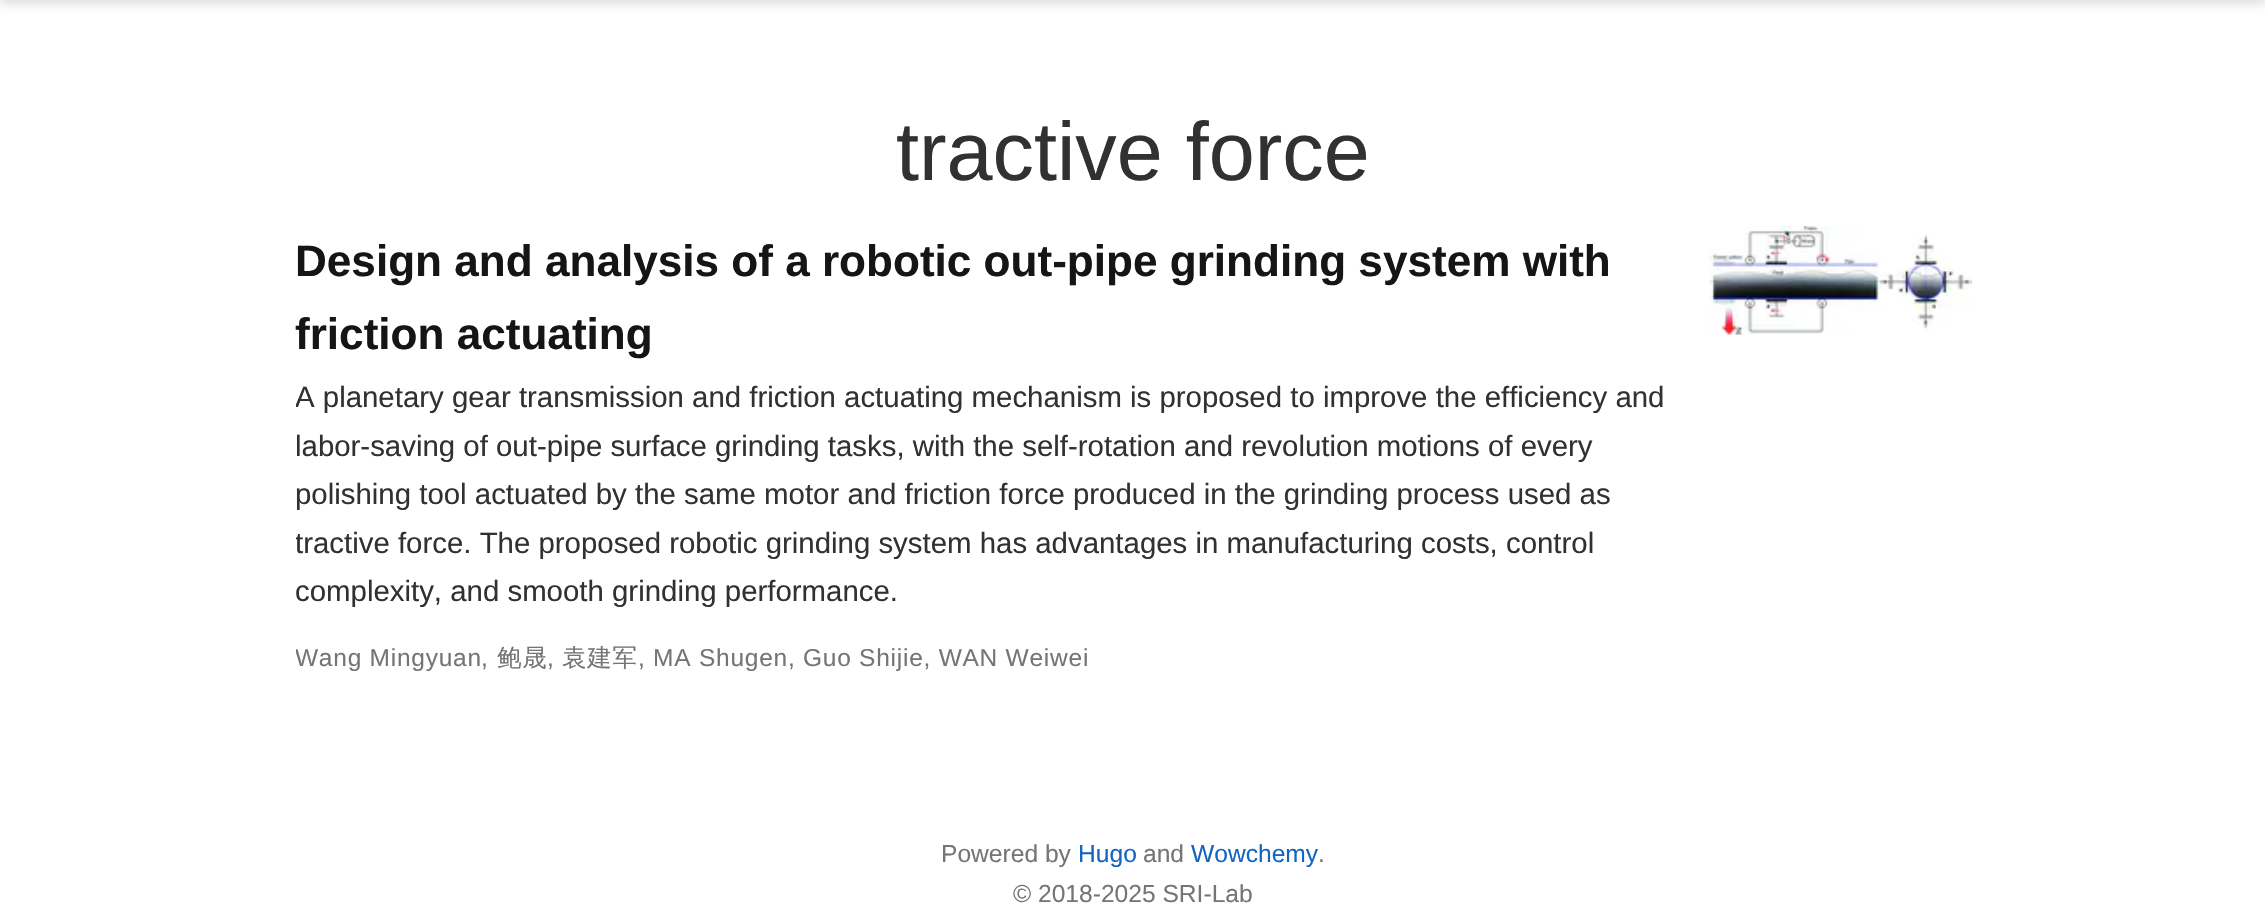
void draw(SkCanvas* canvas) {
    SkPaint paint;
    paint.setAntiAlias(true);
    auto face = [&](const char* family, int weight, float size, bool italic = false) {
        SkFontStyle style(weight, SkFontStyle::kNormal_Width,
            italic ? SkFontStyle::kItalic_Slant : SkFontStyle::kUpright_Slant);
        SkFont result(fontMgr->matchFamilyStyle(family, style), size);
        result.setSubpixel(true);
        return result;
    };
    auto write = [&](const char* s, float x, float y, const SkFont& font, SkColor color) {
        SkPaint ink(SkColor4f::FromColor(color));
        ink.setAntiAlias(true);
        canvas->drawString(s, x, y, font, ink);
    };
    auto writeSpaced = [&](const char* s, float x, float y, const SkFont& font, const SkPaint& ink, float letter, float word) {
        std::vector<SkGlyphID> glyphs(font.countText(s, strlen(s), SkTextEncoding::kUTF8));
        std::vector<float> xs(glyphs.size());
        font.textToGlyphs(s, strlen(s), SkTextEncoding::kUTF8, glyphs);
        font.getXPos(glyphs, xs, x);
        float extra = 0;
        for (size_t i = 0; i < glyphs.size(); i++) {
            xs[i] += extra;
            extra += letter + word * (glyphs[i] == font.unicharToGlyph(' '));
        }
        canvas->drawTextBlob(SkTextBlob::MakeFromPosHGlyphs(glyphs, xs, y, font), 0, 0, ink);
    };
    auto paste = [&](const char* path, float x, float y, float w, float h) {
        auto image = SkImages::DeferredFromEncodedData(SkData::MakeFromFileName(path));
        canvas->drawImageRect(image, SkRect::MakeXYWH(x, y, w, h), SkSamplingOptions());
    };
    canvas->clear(SK_ColorWHITE);
    paint.setColor(SkColorSetARGB(28, 0, 0, 0));
    paint.setMaskFilter(SkMaskFilter::MakeBlur(kNormal_SkBlurStyle, 4.5f));
    canvas->drawRect(SkRect::MakeXYWH(0, -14, 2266, 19), paint);
    paint.setMaskFilter(nullptr);
    auto kFont1 = face("Liberation Sans", 400, 82.75f);
    write("tractive force", 896, 180, kFont1, SkColorSetRGB(49, 49, 49));
    auto kFont2 = face("Liberation Sans", 700, 44.1f);
    write("Design and analysis of a robotic out-pipe grinding system with", 295, 276, kFont2, SkColorSetRGB(21, 21, 21));
    write("friction actuating", 295, 349, kFont2, SkColorSetRGB(21, 21, 21));
    canvas->save();
    canvas->clipRect(SkRect::MakeXYWH(296, 375, 1377, 241));
    auto kFont3 = face("Liberation Sans", 400, 29.4f);
    write("A planetary gear transmission and friction actuating mechanism is proposed to improve the efficiency and", 295, 407, kFont3, SkColorSetRGB(49, 49, 49));
    canvas->restore();
    write("labor-saving of out-pipe surface grinding tasks, with the self-rotation and revolution motions of every", 295, 456, kFont3, SkColorSetRGB(49, 49, 49));
    write("polishing tool actuated by the same motor and friction force produced in the grinding process used as", 295, 504, kFont3, SkColorSetRGB(49, 49, 49));
    canvas->save();
    canvas->clipRect(SkRect::MakeXYWH(296, 375, 1377, 241));
    write("tractive force. The proposed robotic grinding system has advantages in manufacturing costs, control", 295, 553, kFont3, SkColorSetRGB(49, 49, 49));
    canvas->restore();
    write("complexity, and smooth grinding performance.", 295, 601, kFont3, SkColorSetRGB(49, 49, 49));
    canvas->save();
    canvas->clipRect(SkRect::MakeXYWH(296, 637, 1377, 40));
    auto kFont4 = face("Liberation Sans", 400, 24.5f);
    paint.setColor(SkColorSetRGB(117, 117, 117));
    writeSpaced("Wang Mingyuan", 295, 666, kFont4, paint, 0.75f, 0);
    canvas->restore();
    writeSpaced(",", 481, 666, kFont4, paint, 0.75f, 0);
    auto kFont5 = face("WenQuanYi Zen Hei", 500, 24.5f);
    writeSpaced("鲍晟", 497, 666, kFont5, paint, 0.75f, 0);
    writeSpaced(",", 547, 666, kFont4, paint, 0.75f, 0);
    writeSpaced("袁建军", 562, 666, kFont5, paint, 0.75f, 0);
    writeSpaced(", MA Shugen, Guo Shijie, WAN Weiwei", 638, 666, kFont4, paint, 0.75f, 0);
    paste("pic1.png", 1709, 226, 264, 109);
    auto kFont6 = face("Liberation Sans", 400, 24.6f);
    write("Powered by", 941, 862, kFont6, SkColorSetRGB(117, 117, 117));
    write("Hugo", 1078, 862, kFont6, SkColorSetRGB(21, 101, 192));
    write("and", 1143, 862, kFont6, SkColorSetRGB(117, 117, 117));
    write("Wowchemy", 1191, 862, kFont6, SkColorSetRGB(21, 101, 192));
    write(".", 1318, 862, kFont6, SkColorSetRGB(117, 117, 117));
    write("© 2018-2025 SRI-Lab", 1013, 902, kFont6, SkColorSetRGB(117, 117, 117));
}
